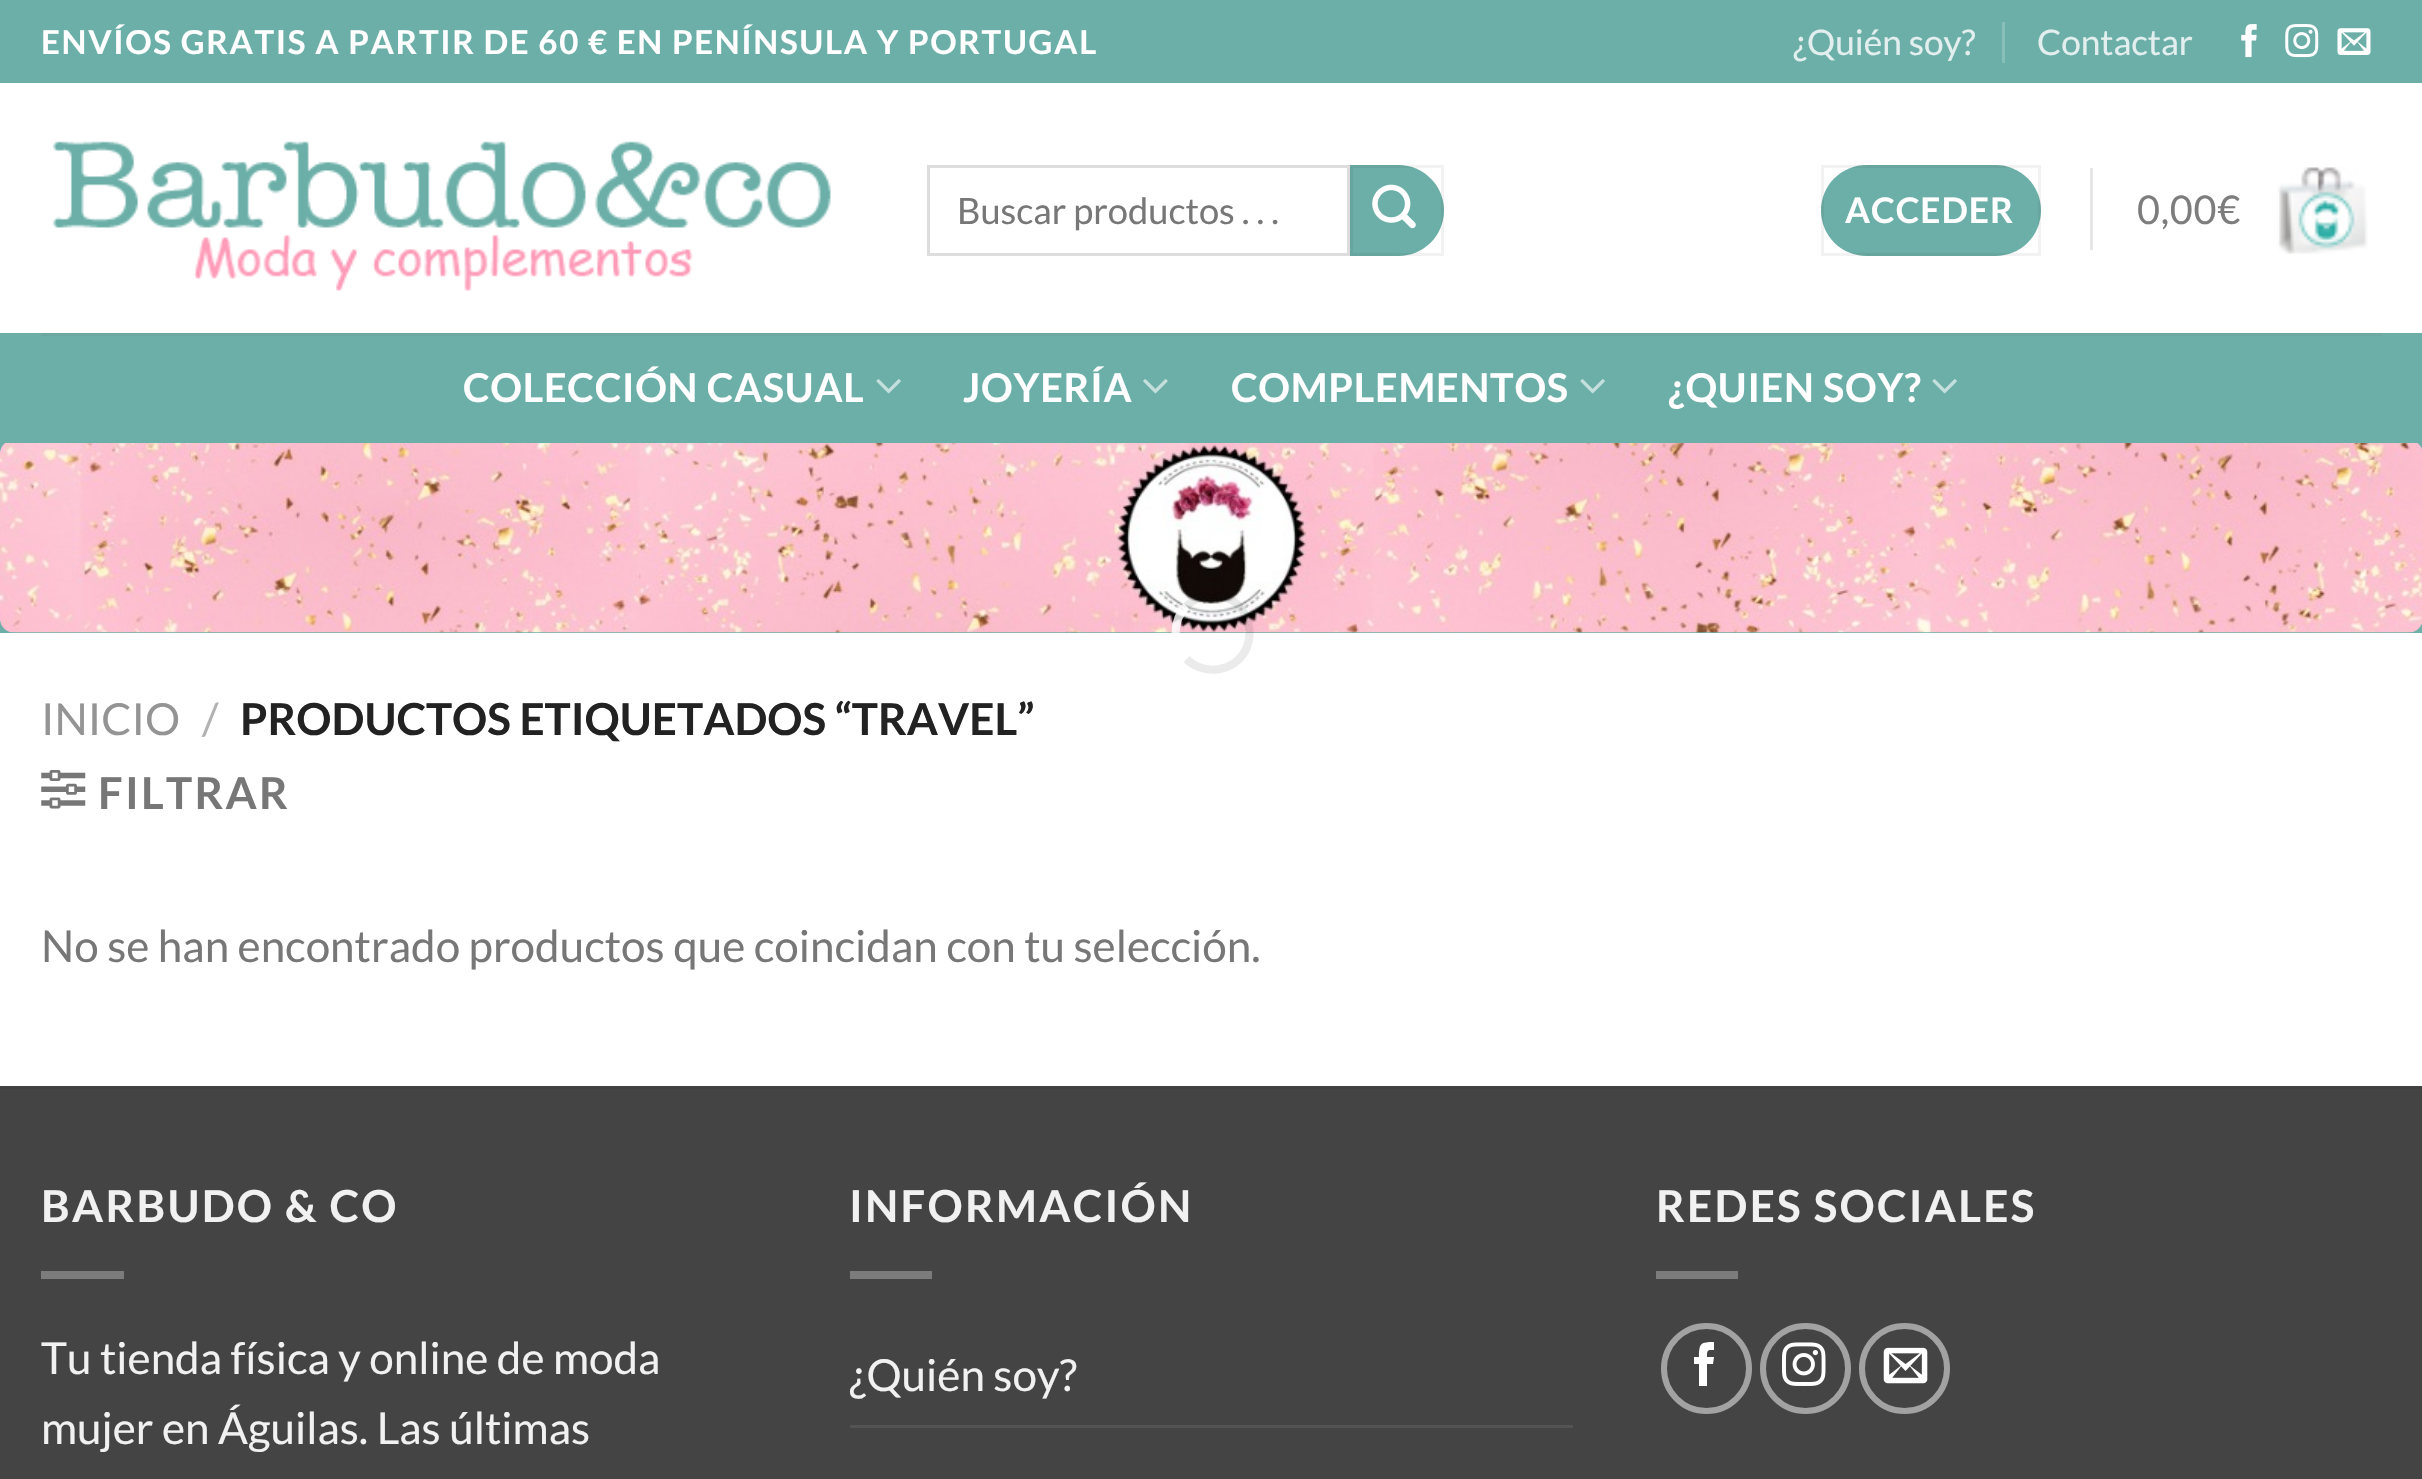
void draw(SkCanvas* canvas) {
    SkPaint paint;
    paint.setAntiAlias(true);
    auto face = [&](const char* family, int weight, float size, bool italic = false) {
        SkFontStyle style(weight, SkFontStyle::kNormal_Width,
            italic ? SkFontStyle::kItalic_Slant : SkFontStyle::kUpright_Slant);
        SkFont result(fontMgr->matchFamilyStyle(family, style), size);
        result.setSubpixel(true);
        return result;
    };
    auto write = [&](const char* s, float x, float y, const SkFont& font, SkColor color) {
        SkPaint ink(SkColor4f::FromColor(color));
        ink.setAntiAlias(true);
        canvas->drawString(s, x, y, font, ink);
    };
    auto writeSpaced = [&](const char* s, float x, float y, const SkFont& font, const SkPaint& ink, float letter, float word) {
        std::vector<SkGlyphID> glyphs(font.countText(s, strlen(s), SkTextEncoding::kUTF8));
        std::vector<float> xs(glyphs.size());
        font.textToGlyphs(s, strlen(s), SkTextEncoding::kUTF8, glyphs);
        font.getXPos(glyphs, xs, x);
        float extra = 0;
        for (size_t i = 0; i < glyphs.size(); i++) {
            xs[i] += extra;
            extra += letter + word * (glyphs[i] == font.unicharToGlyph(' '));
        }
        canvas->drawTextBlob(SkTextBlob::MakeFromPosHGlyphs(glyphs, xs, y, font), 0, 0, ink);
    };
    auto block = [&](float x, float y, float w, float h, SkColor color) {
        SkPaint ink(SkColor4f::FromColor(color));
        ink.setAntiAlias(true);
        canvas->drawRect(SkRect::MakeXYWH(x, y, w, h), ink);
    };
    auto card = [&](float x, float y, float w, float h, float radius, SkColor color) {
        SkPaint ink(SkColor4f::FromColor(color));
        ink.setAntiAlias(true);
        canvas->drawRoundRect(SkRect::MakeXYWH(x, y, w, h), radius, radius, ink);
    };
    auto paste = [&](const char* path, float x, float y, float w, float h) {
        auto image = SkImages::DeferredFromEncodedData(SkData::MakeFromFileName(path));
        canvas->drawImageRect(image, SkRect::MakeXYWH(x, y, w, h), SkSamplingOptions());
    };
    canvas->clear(SK_ColorWHITE);
    block(0, 0, 2422, 83, SkColorSetRGB(108, 175, 168));
    auto kFont1 = face("Lato", 700, 33);
    paint.setColor(SK_ColorWHITE);
    writeSpaced("ENVÍOS GRATIS A PARTIR DE 60 € EN PENÍNSULA Y PORTUGAL", 41, 54, kFont1, paint, 1.65f, 0);
    auto kFont2 = face("Lato", 400, 35.25f);
    write("¿Quién soy?", 1793, 55, kFont2, SkColorSetRGB(226, 239, 238));
    block(2002, 22, 3, 41, SkColorSetRGB(137, 191, 185));
    write("Contactar", 2037, 55, kFont2, SkColorSetRGB(226, 239, 238));
    paste("pic1.png", 2241, 24, 16, 34);
    paste("pic2.png", 2285, 24, 34, 34);
    paste("pic3.png", 2337, 28, 34, 27);
    paste("pic4.png", 52, 141, 779, 150);
    paint.setStyle(SkPaint::kStroke_Style);
    paint.setStrokeWidth(3);
    paint.setColor(SkColorSetRGB(221, 221, 221));
    canvas->drawRect(SkRect::MakeXYWH(928.5f, 166.5f, 420, 88), paint);
    auto kFont3 = face("Lato", 400, 36.25f);
    write("Buscar productos . . .", 957, 224, kFont3, SkColorSetRGB(119, 119, 119));
    paint.setStyle(SkPaint::kFill_Style);
    paint.setColor(SkColorSetRGB(108, 175, 168));
    canvas->drawPath(SkPathBuilder().moveTo(1350, 165).lineTo(1398.5f, 165).cubicTo(1423.5f, 165, 1444, 185.5f, 1444, 210.5f).cubicTo(1444, 235.5f, 1423.5f, 256, 1398.5f, 256).lineTo(1350, 256).close().detach(), paint);
    paint.setStyle(SkPaint::kStroke_Style);
    paint.setColor(SkColorSetARGB(13, 0, 0, 0));
    canvas->drawRect(SkRect::MakeXYWH(1351.5f, 166.5f, 91, 88), paint);
    paste("pic5.png", 1372, 184, 44, 45);
    card(1821, 165, 220, 91, 45.5f, SkColorSetRGB(108, 175, 168));
    canvas->drawRect(SkRect::MakeXYWH(1822.5f, 166.5f, 217, 88), paint);
    auto kFont4 = face("Lato", 700, 35.25f);
    paint.setStyle(SkPaint::kFill_Style);
    paint.setColor(SK_ColorWHITE);
    writeSpaced("ACCEDER", 1845, 223, kFont4, paint, 1, 0);
    block(2090, 168, 3, 82, SkColorSetRGB(230, 230, 230));
    auto kFont5 = face("Lato", 400, 39.6f);
    paint.setColor(SkColorSetRGB(125, 125, 125));
    writeSpaced("0,00€", 2137, 224, kFont5, paint, 0.75f, 0);
    paste("pic6.png", 2277, 167, 91, 87);
    block(0, 333, 2422, 300, SkColorSetRGB(108, 175, 168));
    block(41, 333, 2341, 3, SkColorSetRGB(109, 169, 163));
    auto kFont6 = face("Lato", 700, 39.6f);
    paint.setColor(SK_ColorWHITE);
    writeSpaced("COLECCIÓN CASUAL", 463, 402, kFont6, paint, 0.75f, 0);
    paste("pic7.png", 876, 379, 25, 15);
    writeSpaced("JOYERÍA", 963, 402, kFont6, paint, 0.75f, 0);
    paste("pic8.png", 1143, 379, 25, 15);
    writeSpaced("COMPLEMENTOS", 1231, 402, kFont6, paint, 0.75f, 0);
    paste("pic7.png", 1580, 379, 25, 15);
    writeSpaced("¿QUIEN SOY?", 1668, 402, kFont6, paint, 0.75f, 0);
    paste("pic7.png", 1932, 379, 25, 15);
    paste("pic9.png", 0, 443, 2422, 190);
    paint.setStyle(SkPaint::kStroke_Style);
    paint.setStrokeWidth(8.2f);
    paint.setColor(SkColorSetARGB(20, 0, 0, 0));
    canvas->drawPath(SkPathBuilder().moveTo(1186.5f, 606).cubicTo(1193.5f, 599.5f, 1203, 595.5f, 1213, 595.5f).cubicTo(1257, 595.5f, 1263.5f, 660, 1220, 669).cubicTo(1208, 671.5f, 1195, 667.5f, 1186.5f, 659).detach(), paint);
    paint.setColor(SkColorSetARGB(204, 255, 255, 255));
    canvas->drawPath(SkPathBuilder().moveTo(1186.5f, 659).cubicTo(1172, 644.5f, 1172, 620.5f, 1186.5f, 606).detach(), paint);
    auto kFont7 = face("Lato", 400, 44);
    write("INICIO", 41, 735, kFont7, SkColorSetRGB(148, 148, 148));
    write("/", 202, 735, kFont7, SkColorSetRGB(178, 178, 178));
    auto kFont8 = face("Lato", 700, 44);
    write("PRODUCTOS ETIQUETADOS “TRAVEL”", 240, 735, kFont8, SkColorSetRGB(34, 34, 34));
    paste("pic10.png", 41, 770, 45, 39);
    paint.setStyle(SkPaint::kFill_Style);
    paint.setColor(SkColorSetRGB(119, 119, 119));
    writeSpaced("FILTRAR", 98, 809, kFont8, paint, 2.25f, 0);
    write("No se han encontrado productos que coincidan con tu selección.", 41, 962, kFont7, SkColorSetRGB(119, 119, 119));
    block(0, 1089, 2422, 390, SkColorSetRGB(68, 68, 68));
    block(0, 1086, 2422, 3, SkColorSetRGB(65, 65, 65));
    paint.setColor(SkColorSetRGB(241, 241, 241));
    writeSpaced("BARBUDO & CO", 41, 1222, kFont8, paint, 2.25f, 0);
    block(41, 1271, 83, 8, SkColorSetRGB(124, 124, 124));
    write("Tu tienda física y online de moda", 41, 1374, kFont7, SkColorSetRGB(241, 241, 241));
    write("mujer en Águilas. Las últimas", 41, 1444, kFont7, SkColorSetRGB(241, 241, 241));
    writeSpaced("INFORMACIÓN", 849, 1222, kFont8, paint, 2.25f, 0);
    block(850, 1271, 82, 8, SkColorSetRGB(124, 124, 124));
    write("¿Quién soy?", 849, 1391, kFont7, SkColorSetRGB(241, 241, 241));
    block(850, 1425, 723, 3, SkColorSetRGB(83, 83, 83));
    writeSpaced("REDES SOCIALES", 1656, 1222, kFont8, paint, 2.25f, 0);
    block(1656, 1271, 82, 8, SkColorSetRGB(124, 124, 124));
    paint.setStyle(SkPaint::kStroke_Style);
    paint.setStrokeWidth(6);
    paint.setColor(SkColorSetRGB(162, 162, 162));
    canvas->drawCircle(1706.5f, 1368.5f, 42.5f, paint);
    paint.setStyle(SkPaint::kFill_Style);
    paint.setColor(SK_ColorWHITE);
    canvas->drawPath(SkPathBuilder().moveTo(1707, 1386).lineTo(1699, 1386).lineTo(1699, 1364).lineTo(1694, 1364).lineTo(1694, 1357).lineTo(1699, 1357).cubicTo(1699, 1343, 1701, 1342, 1714, 1342).lineTo(1714, 1350).cubicTo(1707, 1350, 1707, 1350, 1707, 1357).lineTo(1714, 1357).lineTo(1713, 1364).lineTo(1707, 1364).close().detach(), paint);
    paint.setStyle(SkPaint::kStroke_Style);
    paint.setColor(SkColorSetRGB(162, 162, 162));
    canvas->drawCircle(1805.5f, 1368.5f, 42.5f, paint);
    paste("pic11.png", 1782, 1342, 44, 44);
    canvas->drawCircle(1904.5f, 1368.5f, 42.5f, paint);
    paste("pic12.png", 1883, 1347, 45, 37);
}
